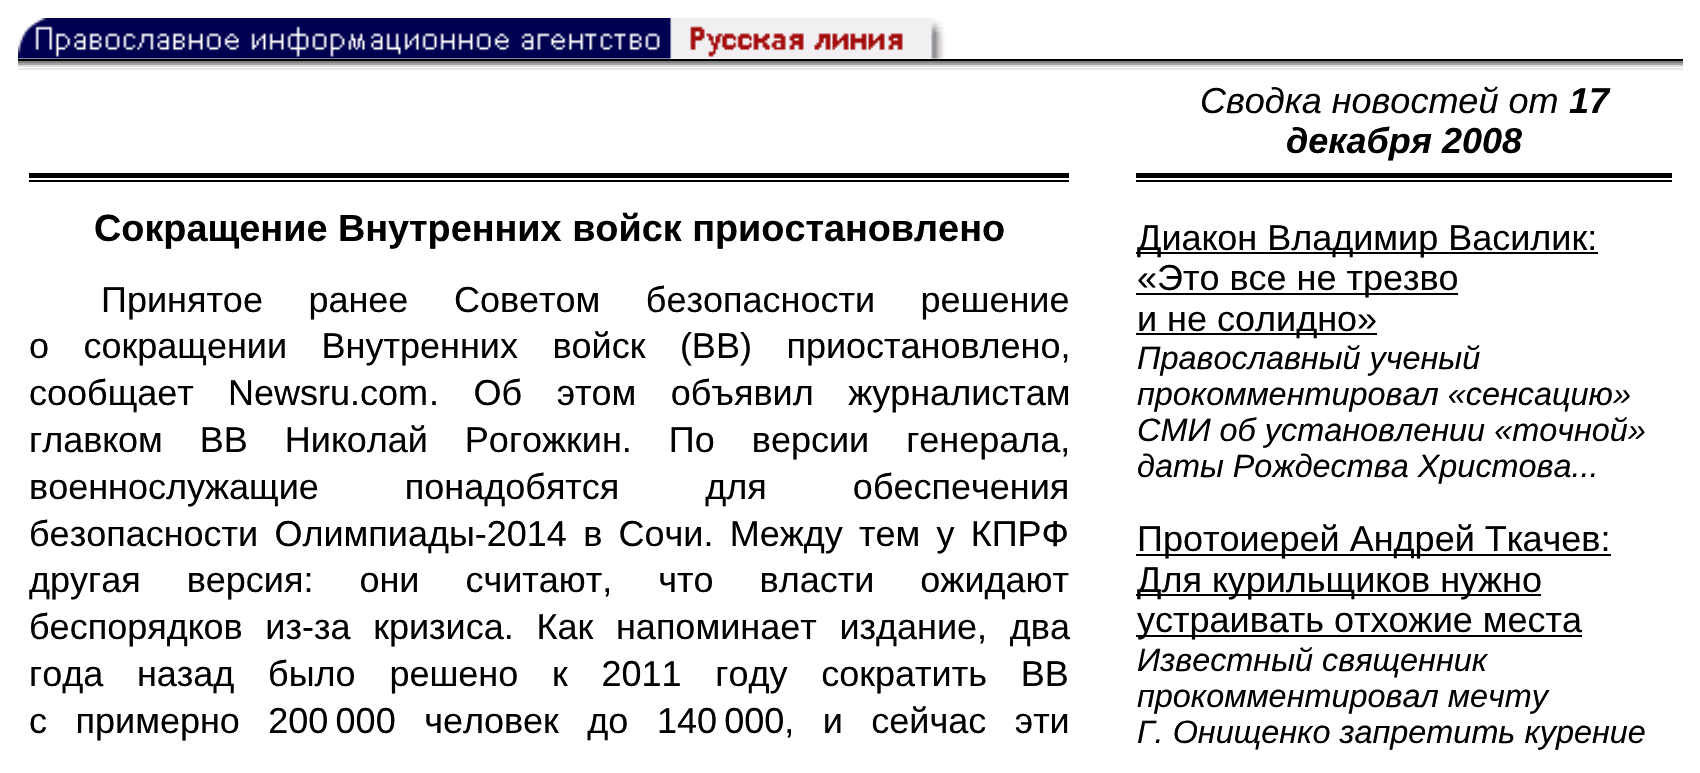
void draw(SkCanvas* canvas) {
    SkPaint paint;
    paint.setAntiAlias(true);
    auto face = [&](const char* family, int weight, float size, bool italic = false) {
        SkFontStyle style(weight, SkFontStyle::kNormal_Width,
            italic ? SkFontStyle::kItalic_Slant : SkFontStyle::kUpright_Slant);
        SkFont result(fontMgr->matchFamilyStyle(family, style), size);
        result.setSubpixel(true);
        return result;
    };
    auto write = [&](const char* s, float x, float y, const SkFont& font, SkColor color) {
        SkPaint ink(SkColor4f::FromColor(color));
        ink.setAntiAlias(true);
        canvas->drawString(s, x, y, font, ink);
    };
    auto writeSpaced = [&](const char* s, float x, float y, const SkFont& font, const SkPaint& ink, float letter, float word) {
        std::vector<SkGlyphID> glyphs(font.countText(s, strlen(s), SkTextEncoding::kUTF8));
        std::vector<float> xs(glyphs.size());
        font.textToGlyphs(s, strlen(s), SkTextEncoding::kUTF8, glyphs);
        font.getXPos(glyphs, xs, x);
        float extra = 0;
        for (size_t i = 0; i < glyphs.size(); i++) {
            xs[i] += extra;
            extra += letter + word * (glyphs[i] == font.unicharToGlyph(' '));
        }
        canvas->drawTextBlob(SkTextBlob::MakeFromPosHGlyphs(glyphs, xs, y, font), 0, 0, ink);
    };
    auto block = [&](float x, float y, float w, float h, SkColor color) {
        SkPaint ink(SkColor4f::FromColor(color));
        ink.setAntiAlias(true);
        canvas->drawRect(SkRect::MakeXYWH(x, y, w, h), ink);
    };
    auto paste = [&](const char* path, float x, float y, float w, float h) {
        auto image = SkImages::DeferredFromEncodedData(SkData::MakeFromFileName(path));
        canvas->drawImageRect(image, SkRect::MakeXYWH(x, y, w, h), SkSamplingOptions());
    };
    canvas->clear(SK_ColorWHITE);
    paste("pic1.png", 18, 18, 927, 41);
    block(18, 59, 1665, 2, SK_ColorBLACK);
    block(18, 61, 1665, 2, SkColorSetRGB(128, 128, 128));
    block(18, 63, 1665, 2, SkColorSetRGB(162, 162, 162));
    block(18, 65, 1665, 2, SkColorSetRGB(221, 221, 221));
    block(18, 68, 1665, 2, SkColorSetRGB(232, 232, 232));
    auto kFont1 = face("Liberation Sans", 400, 36, true);
    write("Сводка новостей от", 1200, 113, kFont1, SK_ColorBLACK);
    auto kFont2 = face("Liberation Sans", 700, 36, true);
    write("17", 1569, 113, kFont2, SK_ColorBLACK);
    write("декабря 2008", 1286, 153, kFont2, SK_ColorBLACK);
    block(29, 173, 1040, 5, SK_ColorBLACK);
    block(29, 180, 1040, 2, SK_ColorBLACK);
    auto kFont3 = face("Liberation Sans", 700, 37.8f);
    write("Сокращение Внутренних войск приостановлено", 94, 241, kFont3, SK_ColorBLACK);
    auto kFont4 = face("Liberation Sans", 400, 36);
    paint.setColor(SK_ColorBLACK);
    writeSpaced("Принятое ранее Советом безопасности решение", 101, 312, kFont4, paint, 0, 35.5f);
    writeSpaced("о сокращении Внутренних войск (ВВ) приостановлено,", 29, 358, kFont4, paint, 0, 24.5f);
    write("сообщает", 29, 405, kFont4, SK_ColorBLACK);
    write("Newsru.com", 228, 405, kFont4, SK_ColorBLACK);
    writeSpaced(". Об этом объявил журналистам", 429, 405, kFont4, paint, 0, 24.5f);
    writeSpaced("главком ВВ Николай Рогожкин. По версии генерала,", 29, 452, kFont4, paint, 0, 27);
    writeSpaced("военнослужащие понадобятся для обеспечения", 29, 499, kFont4, paint, 0, 76);
    writeSpaced("безопасности Олимпиады-2014 в Сочи. Между тем у КПРФ", 29, 546, kFont4, paint, 0, 6.25f);
    writeSpaced("другая версия: они считают, что власти ожидают", 29, 592, kFont4, paint, 0, 36);
    writeSpaced("беспорядков из-за кризиса. Как напоминает издание, два", 29, 639, kFont4, paint, 0, 12.75f);
    writeSpaced("года назад было решено к 2011 году сократить ВВ", 29, 686, kFont4, paint, 0, 23.75f);
    writeSpaced("с примерно 200 000 человек до 140 000, и сейчас эти", 29, 733, kFont4, paint, 0, 18.5f);
    block(1136, 173, 536, 5, SK_ColorBLACK);
    block(1136, 180, 536, 2, SK_ColorBLACK);
    block(1136, 252, 462, 2, SK_ColorBLACK);
    write("Диакон Владимир Василик:", 1137, 250, kFont4, SK_ColorBLACK);
    block(1136, 293, 322, 2, SK_ColorBLACK);
    write("«Это все не трезво", 1137, 290, kFont4, SK_ColorBLACK);
    block(1136, 333, 241, 2, SK_ColorBLACK);
    write("и не солидно»", 1137, 331, kFont4, SK_ColorBLACK);
    auto kFont5 = face("Liberation Sans", 400, 32.4f, true);
    write("Православный ученый", 1137, 369, kFont5, SK_ColorBLACK);
    write("прокомментировал «сенсацию»", 1137, 405, kFont5, SK_ColorBLACK);
    write("СМИ об установлении «точной»", 1137, 441, kFont5, SK_ColorBLACK);
    write("даты Рождества Христова...", 1137, 477, kFont5, SK_ColorBLACK);
    block(1136, 554, 475, 2, SK_ColorBLACK);
    write("Протоиерей Андрей Ткачев:", 1137, 551, kFont4, SK_ColorBLACK);
    block(1136, 594, 405, 2, SK_ColorBLACK);
    write("Для курильщиков нужно", 1137, 592, kFont4, SK_ColorBLACK);
    block(1136, 635, 446, 2, SK_ColorBLACK);
    write("устраивать отхожие места", 1137, 632, kFont4, SK_ColorBLACK);
    write("Известный священник", 1137, 671, kFont5, SK_ColorBLACK);
    write("прокомментировал мечту", 1137, 707, kFont5, SK_ColorBLACK);
    write("Г. Онищенко запретить курение", 1137, 743, kFont5, SK_ColorBLACK);
}
